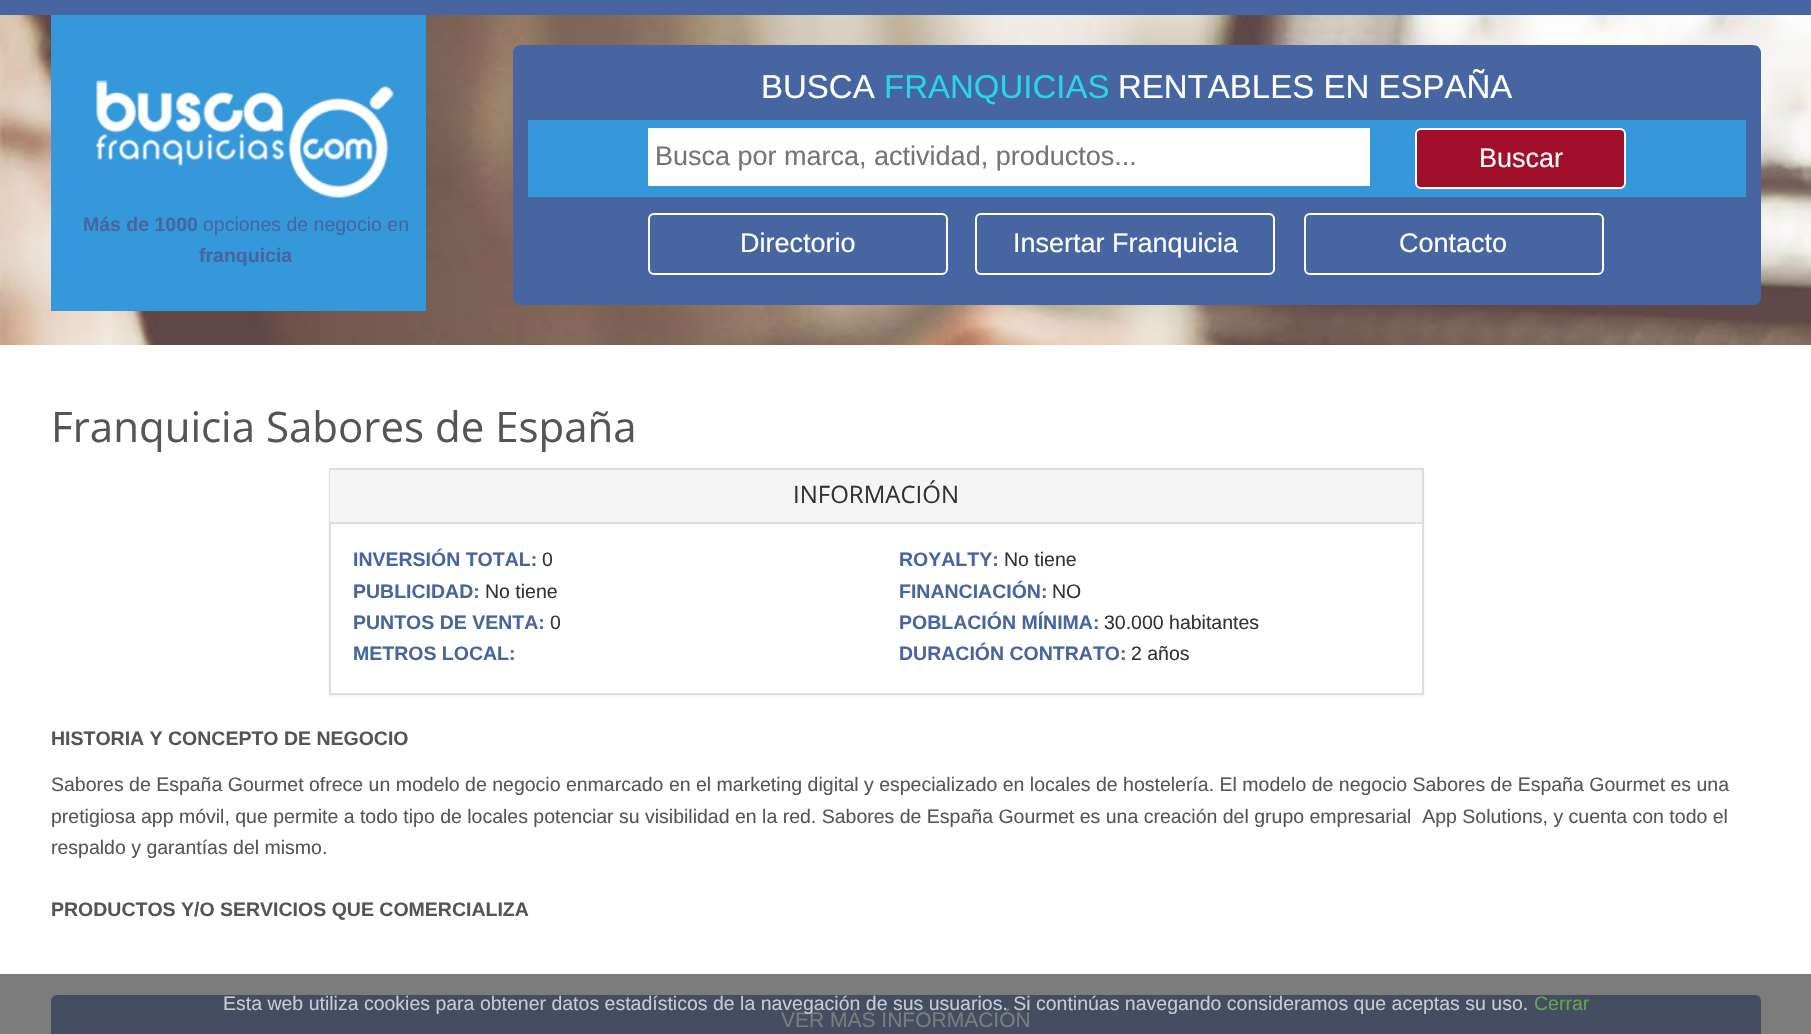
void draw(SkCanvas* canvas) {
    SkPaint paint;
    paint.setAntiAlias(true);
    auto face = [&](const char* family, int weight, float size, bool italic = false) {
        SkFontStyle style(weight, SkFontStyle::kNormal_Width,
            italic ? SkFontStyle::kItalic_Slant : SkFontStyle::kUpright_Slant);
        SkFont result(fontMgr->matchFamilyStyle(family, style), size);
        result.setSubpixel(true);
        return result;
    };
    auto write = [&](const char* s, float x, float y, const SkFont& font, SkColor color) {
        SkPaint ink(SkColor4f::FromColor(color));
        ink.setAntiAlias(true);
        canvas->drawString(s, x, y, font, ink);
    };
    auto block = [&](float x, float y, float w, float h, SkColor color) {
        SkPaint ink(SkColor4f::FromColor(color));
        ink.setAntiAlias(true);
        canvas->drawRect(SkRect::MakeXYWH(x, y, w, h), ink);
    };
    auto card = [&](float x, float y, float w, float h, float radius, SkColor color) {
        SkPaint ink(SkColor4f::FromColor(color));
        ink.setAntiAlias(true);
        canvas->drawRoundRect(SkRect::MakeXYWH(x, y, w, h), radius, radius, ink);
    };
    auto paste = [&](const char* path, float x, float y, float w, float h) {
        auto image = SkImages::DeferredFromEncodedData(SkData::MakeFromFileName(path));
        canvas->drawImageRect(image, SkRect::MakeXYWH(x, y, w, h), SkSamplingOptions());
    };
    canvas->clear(SK_ColorWHITE);
    block(0, 974, 1811, 60, SkColorSetRGB(124, 124, 124));
    block(0, 0, 1811, 15, SkColorSetRGB(71, 101, 160));
    paste("pic1.png", 0, 15, 1811, 330);
    block(51, 15, 375, 296, SkColorSetRGB(52, 152, 219));
    paste("pic2.png", 96, 80, 298, 118);
    auto kFont1 = face("Liberation Sans", 700, 19.5f);
    write("Más de 1000", 83, 231, kFont1, SkColorSetRGB(71, 101, 160));
    auto kFont2 = face("Liberation Sans", 400, 19.5f);
    write("opciones de negocio en", 203, 231, kFont2, SkColorSetRGB(71, 101, 160));
    write("franquicia", 199, 262, kFont1, SkColorSetRGB(71, 101, 160));
    paint.setColor(SkColorSetRGB(71, 101, 160));
    canvas->drawPath(SkPathBuilder().moveTo(521, 45).lineTo(1753, 45).cubicTo(1757.5f, 45, 1761, 48.5f, 1761, 53).lineTo(1761, 212).lineTo(513, 212).lineTo(513, 53).cubicTo(513, 48.5f, 516.5f, 45, 521, 45).close().detach(), paint);
    auto kFont3 = face("Liberation Sans", 400, 33);
    write("BUSCA", 761, 98, kFont3, SK_ColorWHITE);
    write("FRANQUICIAS", 884, 98, kFont3, SkColorSetRGB(39, 215, 231));
    write("RENTABLES EN ESPAÑA", 1118, 98, kFont3, SK_ColorWHITE);
    block(528, 120, 1218, 77, SkColorSetRGB(52, 152, 219));
    block(648, 128, 722, 58, SK_ColorWHITE);
    auto kFont4 = face("Liberation Sans", 400, 27);
    write("Busca por marca, actividad, productos...", 655, 165, kFont4, SkColorSetRGB(117, 117, 117));
    paint.setColor(SkColorSetRGB(161, 15, 43));
    canvas->drawRoundRect(SkRect::MakeXYWH(1416, 129, 209, 59), 5, 5, paint);
    paint.setStyle(SkPaint::kStroke_Style);
    paint.setStrokeWidth(2);
    paint.setColor(SK_ColorWHITE);
    canvas->drawRoundRect(SkRect::MakeXYWH(1416, 129, 209, 59), 5, 5, paint);
    write("Buscar", 1479, 167, kFont4, SK_ColorWHITE);
    paint.setStyle(SkPaint::kFill_Style);
    paint.setColor(SkColorSetRGB(71, 101, 160));
    canvas->drawPath(SkPathBuilder().moveTo(513, 212).lineTo(1761, 212).lineTo(1761, 297).cubicTo(1761, 301.5f, 1757.5f, 305, 1753, 305).lineTo(521, 305).cubicTo(516.5f, 305, 513, 301.5f, 513, 297).close().detach(), paint);
    paint.setStyle(SkPaint::kStroke_Style);
    paint.setColor(SK_ColorWHITE);
    canvas->drawRoundRect(SkRect::MakeXYWH(649, 214, 298, 60), 5, 5, paint);
    write("Directorio", 740, 252, kFont4, SK_ColorWHITE);
    canvas->drawRoundRect(SkRect::MakeXYWH(976, 214, 298, 60), 5, 5, paint);
    write("Insertar Franquicia", 1013, 252, kFont4, SK_ColorWHITE);
    canvas->drawRoundRect(SkRect::MakeXYWH(1305, 214, 298, 60), 5, 5, paint);
    write("Contacto", 1399, 252, kFont4, SK_ColorWHITE);
    auto kFont5 = face("Open Sans", 400, 42);
    write("Franquicia Sabores de España", 51, 442, kFont5, SkColorSetRGB(85, 85, 85));
    paint.setStyle(SkPaint::kFill_Style);
    paint.setColor(SkColorSetARGB(13, 0, 0, 0));
    paint.setMaskFilter(SkMaskFilter::MakeBlur(kNormal_SkBlurStyle, 1));
    canvas->drawRect(SkRect::MakeXYWH(329, 470, 1095, 226), paint);
    paint.setMaskFilter(nullptr);
    block(331, 524, 1091, 169, SK_ColorWHITE);
    paint.setStyle(SkPaint::kStroke_Style);
    paint.setColor(SkColorSetRGB(221, 221, 221));
    canvas->drawRect(SkRect::MakeXYWH(330, 469, 1093, 225), paint);
    block(330, 470, 1092, 52, SkColorSetRGB(245, 245, 245));
    block(330, 522, 1092, 2, SkColorSetRGB(221, 221, 221));
    auto kFont6 = face("Open Sans", 400, 24);
    write("INFORMACIÓN", 793, 503, kFont6, SkColorSetRGB(51, 51, 51));
    write("INVERSIÓN TOTAL:", 353, 566, kFont1, SkColorSetRGB(71, 101, 160));
    write("0", 542, 566, kFont2, SkColorSetRGB(51, 51, 51));
    write("ROYALTY:", 899, 566, kFont1, SkColorSetRGB(71, 101, 160));
    write("No tiene", 1004, 566, kFont2, SkColorSetRGB(51, 51, 51));
    write("PUBLICIDAD:", 353, 598, kFont1, SkColorSetRGB(71, 101, 160));
    write("No tiene", 485, 598, kFont2, SkColorSetRGB(51, 51, 51));
    write("FINANCIACIÓN:", 899, 598, kFont1, SkColorSetRGB(71, 101, 160));
    write("NO", 1052, 598, kFont2, SkColorSetRGB(51, 51, 51));
    write("PUNTOS DE VENTA:", 353, 629, kFont1, SkColorSetRGB(71, 101, 160));
    write("0", 550, 629, kFont2, SkColorSetRGB(51, 51, 51));
    write("POBLACIÓN MÍNIMA:", 899, 629, kFont1, SkColorSetRGB(71, 101, 160));
    write("30.000 habitantes", 1104, 629, kFont2, SkColorSetRGB(51, 51, 51));
    write("METROS LOCAL:", 353, 660, kFont1, SkColorSetRGB(71, 101, 160));
    write("DURACIÓN CONTRATO:", 899, 660, kFont1, SkColorSetRGB(71, 101, 160));
    write("2 años", 1131, 660, kFont2, SkColorSetRGB(51, 51, 51));
    write("HISTORIA Y CONCEPTO DE NEGOCIO", 51, 745, kFont1, SkColorSetRGB(85, 85, 85));
    write("Sabores de España Gourmet ofrece un modelo de negocio enmarcado en el marketing digital y especializado en locales de hostelería. El modelo de negocio Sabores de España Gourmet es una", 51, 791, kFont2, SkColorSetRGB(85, 85, 85));
    write("pretigiosa app móvil, que permite a todo tipo de locales potenciar su visibilidad en la red. Sabores de España Gourmet es una creación del grupo empresarial  App Solutions, y cuenta con todo el", 51, 823, kFont2, SkColorSetRGB(85, 85, 85));
    write("respaldo y garantías del mismo.", 51, 854, kFont2, SkColorSetRGB(85, 85, 85));
    write("PRODUCTOS Y/O SERVICIOS QUE COMERCIALIZA", 51, 916, kFont1, SkColorSetRGB(85, 85, 85));
    card(51, 995, 1710, 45, 6, SkColorSetRGB(69, 78, 96));
    auto kFont7 = face("Liberation Sans", 400, 21);
    write("VER MÁS INFORMACIÓN", 781, 1027, kFont7, SkColorSetRGB(124, 124, 124));
    write("Esta web utiliza cookies para obtener datos estadísticos de la navegación de sus usuarios. Si continúas navegando consideramos que aceptas su uso.", 223, 1010, kFont2, SkColorSetRGB(199, 202, 207));
    write("Cerrar", 1534, 1010, kFont2, SkColorSetRGB(101, 165, 79));
}
